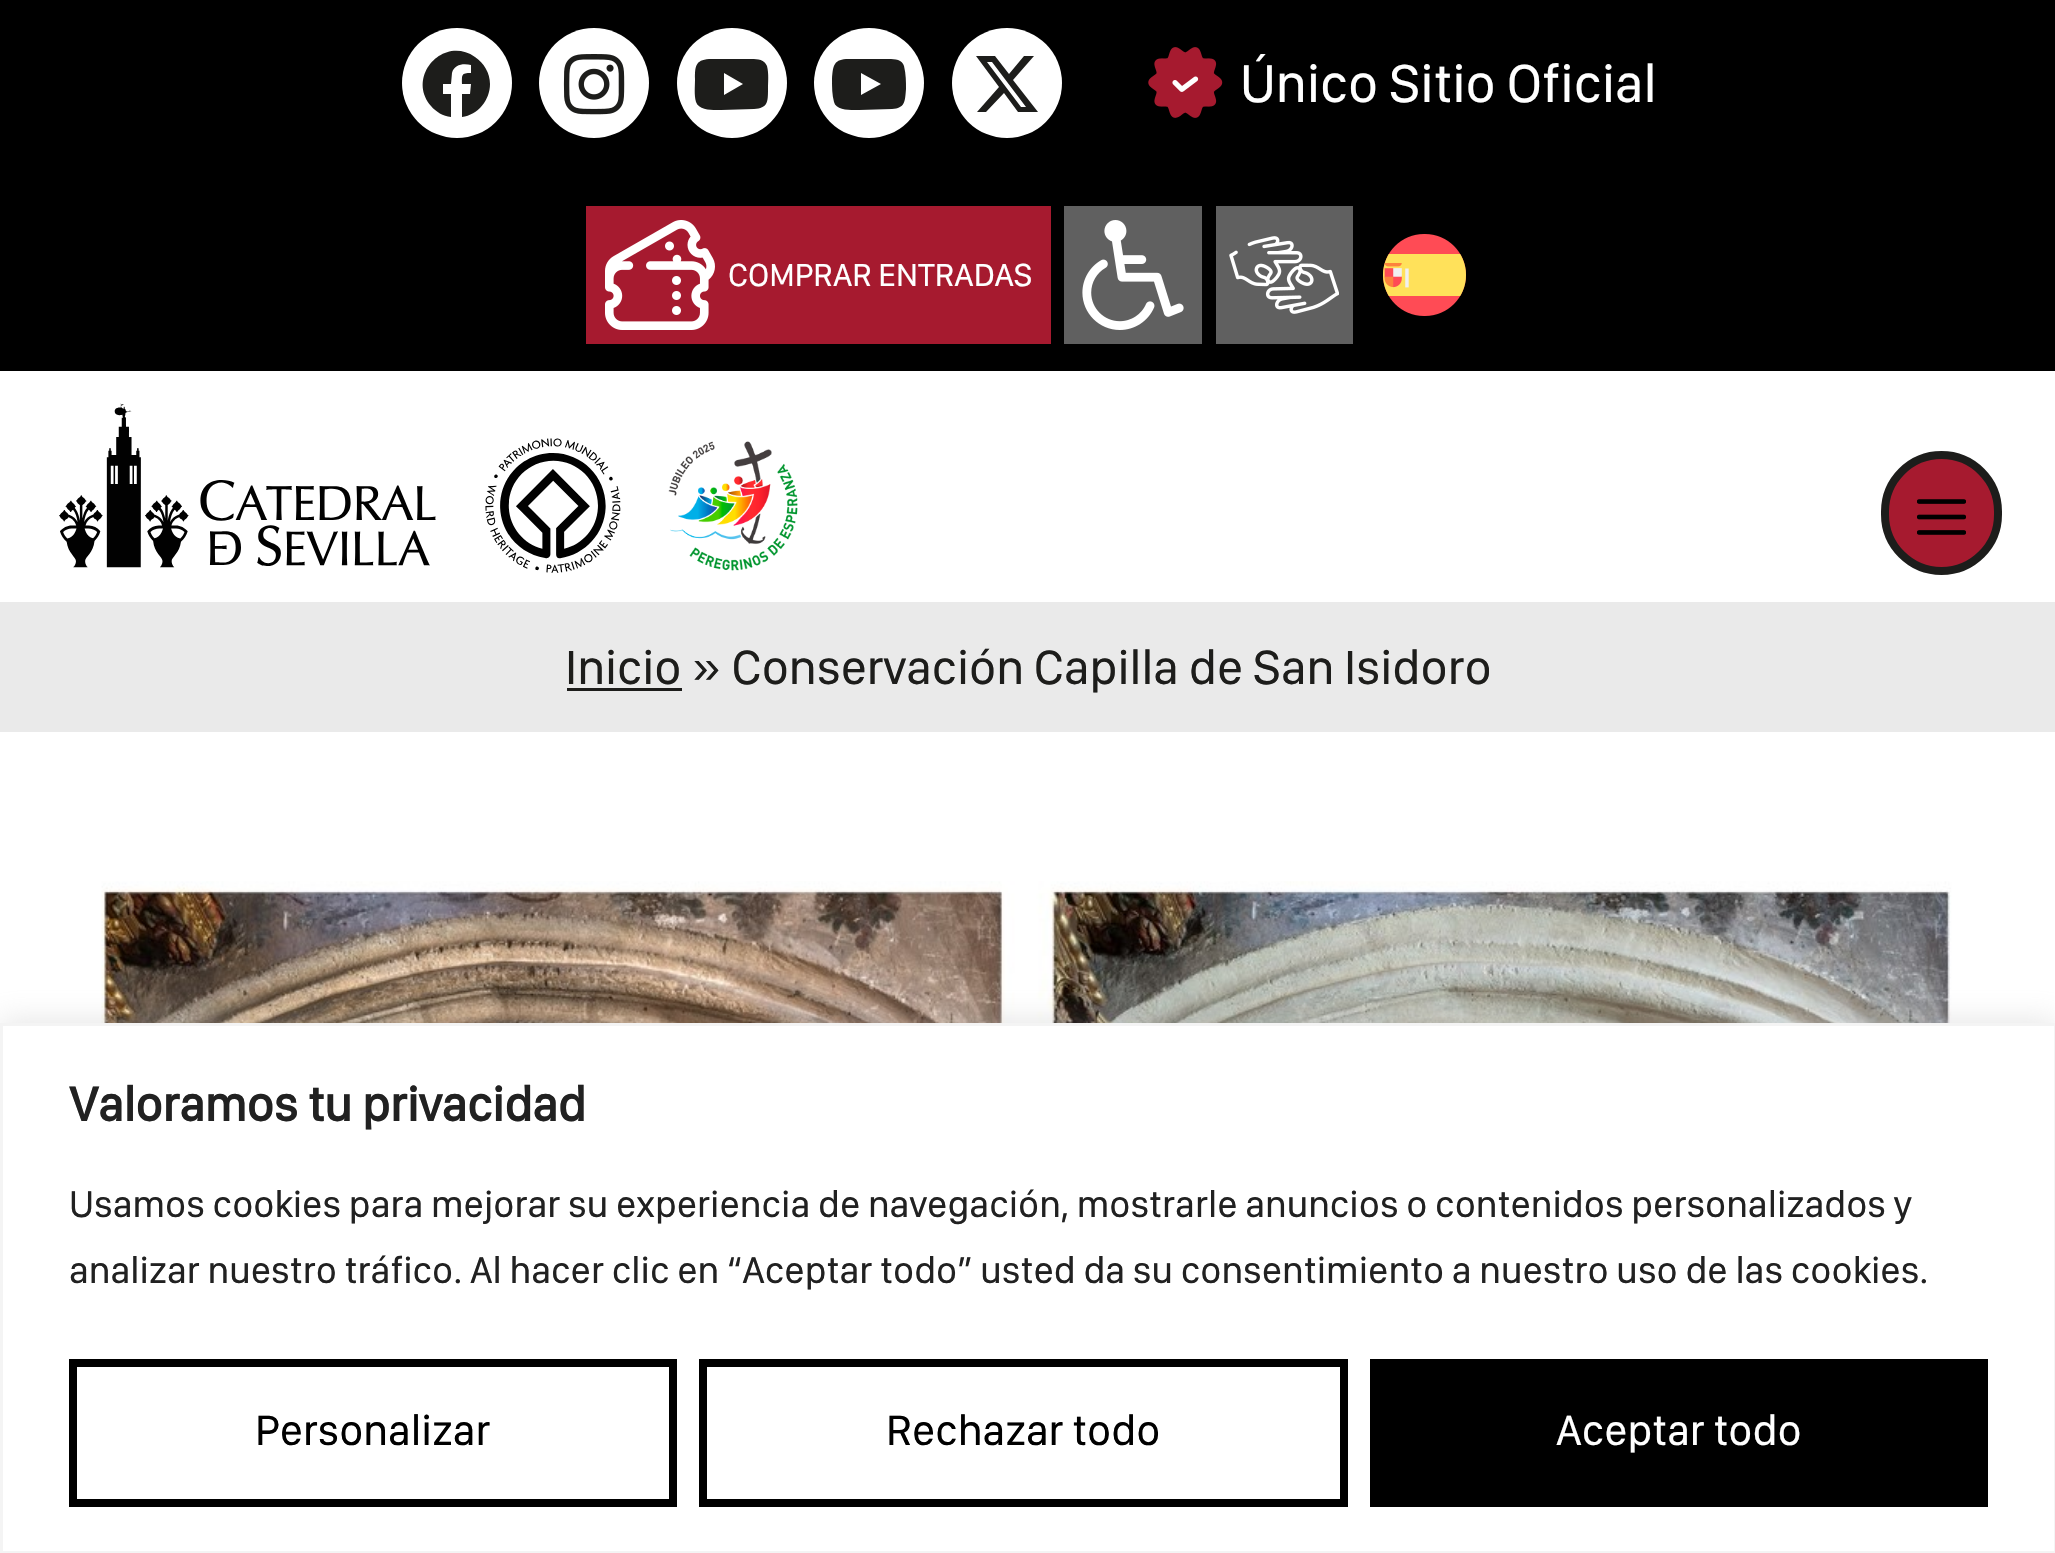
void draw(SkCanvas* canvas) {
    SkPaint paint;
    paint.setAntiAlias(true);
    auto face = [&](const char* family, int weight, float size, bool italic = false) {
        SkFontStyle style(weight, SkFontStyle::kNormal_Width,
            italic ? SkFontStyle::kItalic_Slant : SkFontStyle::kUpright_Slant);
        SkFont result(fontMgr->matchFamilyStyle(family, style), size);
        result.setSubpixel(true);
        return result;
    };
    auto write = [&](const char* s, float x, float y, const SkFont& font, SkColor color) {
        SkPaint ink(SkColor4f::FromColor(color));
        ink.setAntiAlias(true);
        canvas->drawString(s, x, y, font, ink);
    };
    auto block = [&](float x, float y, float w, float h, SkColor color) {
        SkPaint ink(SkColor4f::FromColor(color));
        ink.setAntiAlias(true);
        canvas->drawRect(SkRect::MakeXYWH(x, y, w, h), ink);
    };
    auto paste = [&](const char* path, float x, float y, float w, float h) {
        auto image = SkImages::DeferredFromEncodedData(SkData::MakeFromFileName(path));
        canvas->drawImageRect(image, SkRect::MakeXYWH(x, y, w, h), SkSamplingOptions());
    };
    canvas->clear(SK_ColorWHITE);
    block(0, 0, 2055, 371, SK_ColorBLACK);
    paint.setColor(SK_ColorWHITE);
    canvas->drawCircle(457, 83, 55, paint);
    paint.setColor(SkColorSetRGB(29, 29, 27));
    canvas->drawPath(SkPathBuilder().moveTo(490, 84).cubicTo(490, 100, 478, 115, 462, 117).lineTo(462, 94).lineTo(470, 94).lineTo(471, 84).lineTo(462, 84).cubicTo(462, 75, 461, 73, 471, 73).lineTo(471, 65).cubicTo(464, 63, 454, 64, 452, 73).lineTo(451, 84).lineTo(443, 84).lineTo(443, 94).lineTo(451, 94).lineTo(451, 117).cubicTo(443, 116, 436, 112, 431, 106).cubicTo(406, 77, 443, 35, 475, 57).cubicTo(484, 63, 490, 73, 490, 84).close().detach(), paint);
    paint.setColor(SK_ColorWHITE);
    canvas->drawCircle(594, 83, 55, paint);
    paste("pic1.png", 563, 54, 62, 61);
    canvas->drawCircle(732, 83, 55, paint);
    paint.setColor(SkColorSetRGB(29, 29, 27));
    canvas->drawPath(SkPathBuilder().moveTo(767, 66).cubicTo(769, 74, 768, 82, 768, 89).cubicTo(768, 102, 768, 108, 754, 109).lineTo(721, 110).cubicTo(714, 110, 699, 111, 696, 102).cubicTo(694, 95, 695, 87, 695, 79).cubicTo(695, 67, 695, 60, 709, 59).lineTo(725, 59).lineTo(747, 59).cubicTo(754, 59, 764, 58, 767, 66).close().moveTo(724, 95).lineTo(743, 84).lineTo(724, 73).close().detach(), paint);
    paint.setColor(SK_ColorWHITE);
    canvas->drawCircle(869, 83, 55, paint);
    paint.setColor(SkColorSetRGB(29, 29, 27));
    canvas->drawPath(SkPathBuilder().moveTo(904, 66).cubicTo(906, 74, 906, 82, 906, 89).cubicTo(905, 102, 905, 108, 892, 109).lineTo(859, 110).cubicTo(852, 110, 836, 111, 834, 102).cubicTo(832, 95, 832, 87, 832, 79).cubicTo(833, 67, 833, 60, 846, 59).lineTo(863, 59).lineTo(884, 59).cubicTo(891, 59, 902, 58, 904, 66).close().moveTo(861, 95).lineTo(881, 84).lineTo(861, 73).close().detach(), paint);
    paint.setColor(SK_ColorWHITE);
    canvas->drawCircle(1007, 83, 55, paint);
    paint.setColor(SkColorSetRGB(29, 29, 27));
    canvas->drawPath(SkPathBuilder().moveTo(1024, 56).lineTo(1034, 56).lineTo(1013, 80).lineTo(1038, 112).lineTo(1018, 112).lineTo(1004, 93).lineTo(986, 112).lineTo(977, 112).lineTo(999, 87).lineTo(976, 56).lineTo(995, 56).lineTo(1009, 74).close().moveTo(1021, 107).lineTo(1026, 107).lineTo(992, 62).lineTo(987, 62).close().detach(), paint);
    paste("pic2.png", 1148, 47, 75, 71);
    auto kFont1 = face("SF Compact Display", 400, 55);
    write("Único Sitio Oficial", 1240, 102, kFont1, SK_ColorWHITE);
    block(586, 206, 465, 138, SkColorSetRGB(166, 26, 47));
    paste("pic3.png", 605, 220, 110, 110);
    auto kFont2 = face("SF Compact Display", 400, 33);
    write("COMPRAR ENTRADAS", 728, 286, kFont2, SK_ColorWHITE);
    block(1064, 206, 138, 138, SkColorSetRGB(96, 96, 96));
    paste("pic4.png", 1082, 220, 102, 110);
    block(1216, 206, 137, 138, SkColorSetRGB(96, 96, 96));
    paste("pic5.png", 1229, 236, 110, 78);
    paste("pic6.png", 1383, 234, 83, 82);
    paste("pic7.png", 59, 403, 377, 165);
    paste("pic8.png", 485, 438, 136, 135);
    paste("pic9.png", 668, 441, 130, 130);
    paint.setColor(SkColorSetRGB(166, 26, 47));
    canvas->drawRoundRect(SkRect::MakeXYWH(1885, 455, 113, 116), 56.5f, 56.5f, paint);
    paint.setStyle(SkPaint::kStroke_Style);
    paint.setStrokeWidth(8);
    paint.setColor(SkColorSetRGB(29, 29, 27));
    canvas->drawRoundRect(SkRect::MakeXYWH(1885, 455, 113, 116), 56.5f, 56.5f, paint);
    paste("pic10.png", 1917, 499, 49, 36);
    block(0, 602, 2055, 130, SkColorSetRGB(234, 234, 234));
    block(567, 688, 115, 3, SkColorSetRGB(29, 29, 27));
    auto kFont3 = face("SF Compact Display", 400, 49.5f);
    write("Inicio » Conservación Capilla de San Isidoro", 565, 684, kFont3, SkColorSetRGB(29, 29, 27));
    paste("pic11.png", 101, 881, 1851, 142);
    paint.setStyle(SkPaint::kFill_Style);
    paint.setColor(SkColorSetARGB(77, 172, 171, 171));
    paint.setMaskFilter(SkMaskFilter::MakeBlur(kNormal_SkBlurStyle, 14));
    canvas->drawRect(SkRect::MakeXYWH(0, 1020, 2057, 531), paint);
    paint.setMaskFilter(nullptr);
    paint.setColor(SK_ColorWHITE);
    canvas->drawRect(SkRect::MakeXYWH(1.5f, 1024.5f, 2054, 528), paint);
    paint.setStyle(SkPaint::kStroke_Style);
    paint.setStrokeWidth(3);
    paint.setColor(SkColorSetRGB(244, 244, 244));
    canvas->drawRect(SkRect::MakeXYWH(1.5f, 1024.5f, 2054, 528), paint);
    auto kFont4 = face("SF Compact Display", 700, 49.5f);
    write("Valoramos tu privacidad", 69, 1121, kFont4, SkColorSetRGB(33, 33, 33));
    auto kFont5 = face("SF Compact Display", 400, 38.5f);
    write("Usamos cookies para mejorar su experiencia de navegación, mostrarle anuncios o contenidos personalizados y", 69, 1217, kFont5, SkColorSetRGB(33, 33, 33));
    write("analizar nuestro tráfico. Al hacer clic en “Aceptar todo” usted da su consentimiento a nuestro uso de las cookies.", 69, 1283, kFont5, SkColorSetRGB(33, 33, 33));
    paint.setStrokeWidth(8);
    paint.setColor(SK_ColorBLACK);
    canvas->drawRect(SkRect::MakeXYWH(73, 1363, 600, 140), paint);
    auto kFont6 = face("SF Compact Display", 400, 44);
    write("Personalizar", 255, 1445, kFont6, SK_ColorBLACK);
    canvas->drawRect(SkRect::MakeXYWH(703, 1363, 641, 140), paint);
    write("Rechazar todo", 886, 1445, kFont6, SK_ColorBLACK);
    block(1370, 1359, 618, 148, SK_ColorBLACK);
    write("Aceptar todo", 1556, 1445, kFont6, SK_ColorWHITE);
}
